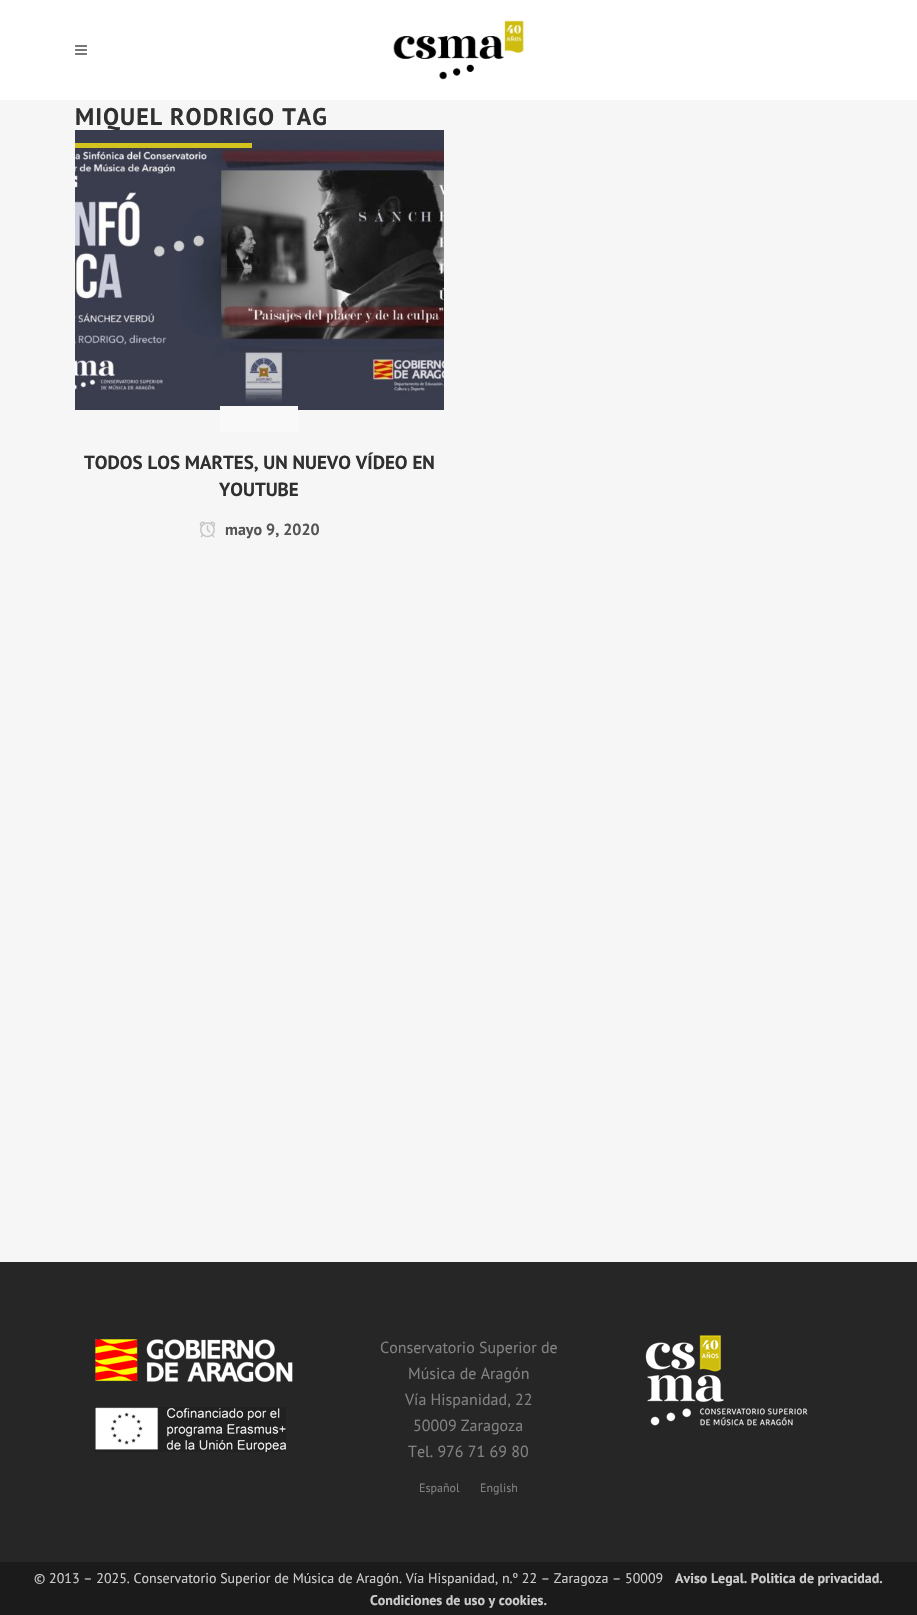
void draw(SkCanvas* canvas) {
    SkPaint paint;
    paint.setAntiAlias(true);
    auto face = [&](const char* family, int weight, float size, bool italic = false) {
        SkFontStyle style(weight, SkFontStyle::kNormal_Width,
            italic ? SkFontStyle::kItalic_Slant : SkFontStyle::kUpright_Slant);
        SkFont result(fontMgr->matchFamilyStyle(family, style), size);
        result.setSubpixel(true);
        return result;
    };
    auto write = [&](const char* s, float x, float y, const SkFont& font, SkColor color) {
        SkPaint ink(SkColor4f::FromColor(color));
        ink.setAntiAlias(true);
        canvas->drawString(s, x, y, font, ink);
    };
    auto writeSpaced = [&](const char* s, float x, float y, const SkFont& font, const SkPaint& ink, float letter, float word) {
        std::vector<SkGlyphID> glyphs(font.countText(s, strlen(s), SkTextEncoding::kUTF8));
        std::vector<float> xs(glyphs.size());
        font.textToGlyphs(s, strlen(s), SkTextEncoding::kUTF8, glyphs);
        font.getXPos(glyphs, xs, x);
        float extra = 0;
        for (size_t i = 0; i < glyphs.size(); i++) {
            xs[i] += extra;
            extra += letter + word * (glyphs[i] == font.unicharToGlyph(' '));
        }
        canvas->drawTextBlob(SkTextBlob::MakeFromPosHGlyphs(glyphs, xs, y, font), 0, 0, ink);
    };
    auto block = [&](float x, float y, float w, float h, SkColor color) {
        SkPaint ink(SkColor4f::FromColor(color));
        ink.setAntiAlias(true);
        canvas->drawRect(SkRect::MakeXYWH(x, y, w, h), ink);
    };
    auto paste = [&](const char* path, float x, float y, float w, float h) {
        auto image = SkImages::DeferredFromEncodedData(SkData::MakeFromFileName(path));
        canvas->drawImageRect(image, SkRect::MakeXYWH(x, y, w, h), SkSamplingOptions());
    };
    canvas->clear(SkColorSetRGB(246, 246, 246));
    block(0, 0, 917, 100, SK_ColorWHITE);
    paste("pic1.png", 75, 45, 12, 10);
    paste("pic2.png", 393, 20, 131, 60);
    paste("pic3.png", 75, 130, 369, 280);
    auto kFont1 = face("PT Sans", 700, 24);
    paint.setColor(SkColorSetRGB(48, 48, 48));
    writeSpaced("MIQUEL RODRIGO TAG", 75, 125, kFont1, paint, 1, 0);
    block(75, 143, 177, 5, SkColorSetRGB(212, 194, 30));
    block(220, 406, 78, 26, SkColorSetRGB(249, 249, 249));
    auto kFont2 = face("PT Sans", 700, 19);
    write("TODOS LOS MARTES, UN NUEVO VÍDEO EN", 84, 469, kFont2, SkColorSetRGB(48, 48, 48));
    write("YOUTUBE", 219, 496, kFont2, SkColorSetRGB(48, 48, 48));
    paste("pic4.png", 199, 521, 17, 17);
    auto kFont3 = face("PT Sans", 700, 16);
    write("mayo 9, 2020", 225, 535, kFont3, SkColorSetRGB(84, 84, 84));
    block(0, 1262, 917, 300, SkColorSetRGB(38, 38, 38));
    paste("pic5.png", 95, 1339, 198, 113);
    auto kFont4 = face("PT Sans", 400, 16);
    write("Conservatorio Superior de", 380, 1353, kFont4, SkColorSetRGB(129, 129, 129));
    write("Música de Aragón", 408, 1379, kFont4, SkColorSetRGB(129, 129, 129));
    write("Vía Hispanidad, 22", 405, 1405, kFont4, SkColorSetRGB(129, 129, 129));
    write("50009 Zaragoza", 413, 1431, kFont4, SkColorSetRGB(129, 129, 129));
    write("Tel. 976 71 69 80", 408, 1457, kFont4, SkColorSetRGB(129, 129, 129));
    auto kFont5 = face("PT Sans", 400, 12);
    write("Español", 419, 1492, kFont5, SkColorSetRGB(129, 129, 129));
    write("English", 480, 1492, kFont5, SkColorSetRGB(129, 129, 129));
    paste("pic6.png", 645, 1335, 163, 91);
    block(0, 1562, 917, 53, SkColorSetRGB(27, 27, 27));
    auto kFont6 = face("PT Sans", 400, 14);
    write("© 2013 – 2025. Conservatorio Superior de Música de Aragón. Vía Hispanidad, n.º 22 – Zaragoza – 50009", 34, 1583, kFont6, SkColorSetRGB(204, 204, 204));
    auto kFont7 = face("PT Sans", 700, 14);
    write("Aviso Legal. Politica de privacidad.", 675, 1583, kFont7, SkColorSetRGB(204, 204, 204));
    write("Condiciones de uso y cookies.", 370, 1605, kFont7, SkColorSetRGB(204, 204, 204));
}
